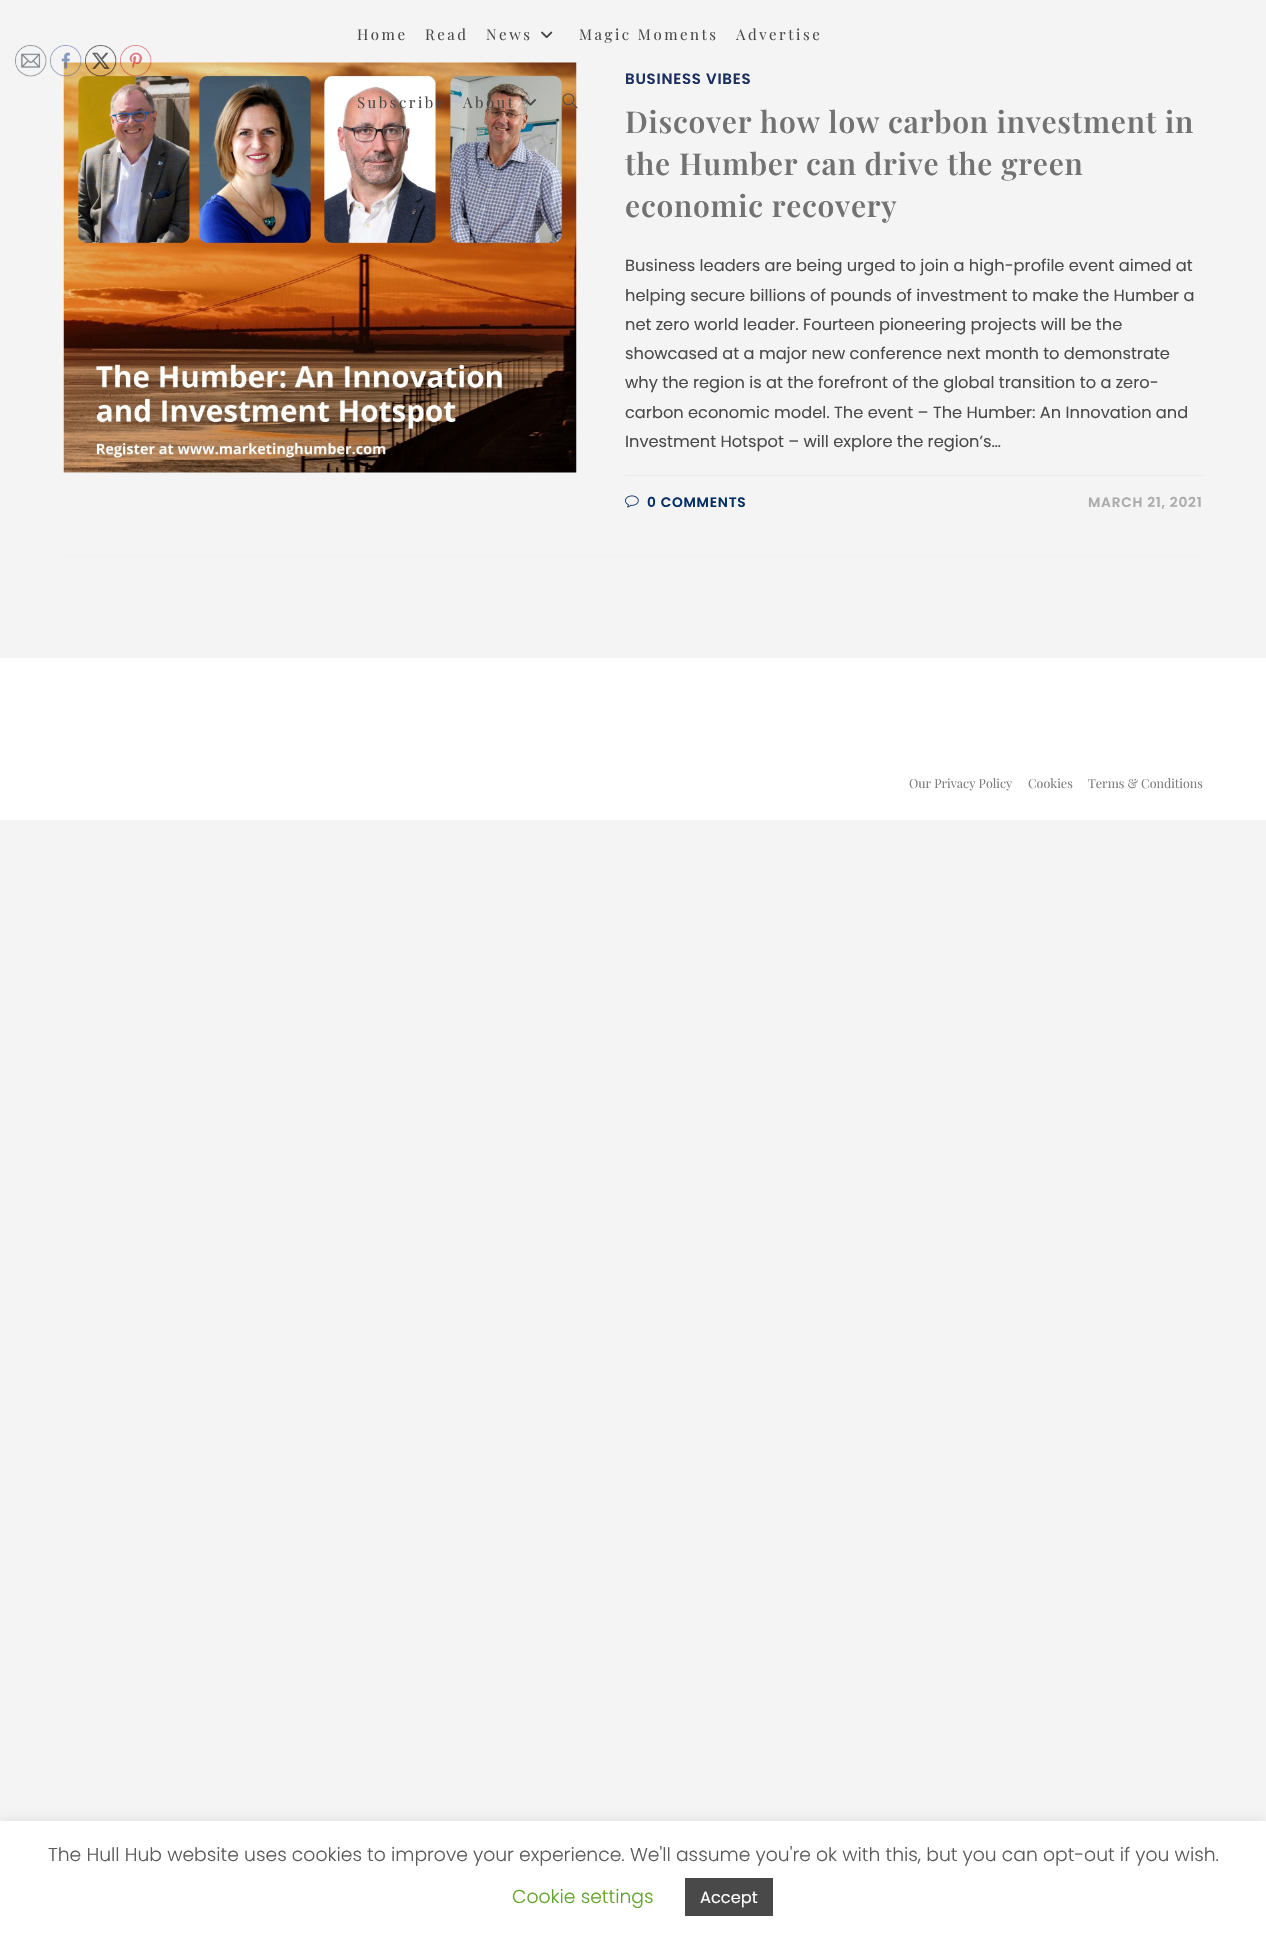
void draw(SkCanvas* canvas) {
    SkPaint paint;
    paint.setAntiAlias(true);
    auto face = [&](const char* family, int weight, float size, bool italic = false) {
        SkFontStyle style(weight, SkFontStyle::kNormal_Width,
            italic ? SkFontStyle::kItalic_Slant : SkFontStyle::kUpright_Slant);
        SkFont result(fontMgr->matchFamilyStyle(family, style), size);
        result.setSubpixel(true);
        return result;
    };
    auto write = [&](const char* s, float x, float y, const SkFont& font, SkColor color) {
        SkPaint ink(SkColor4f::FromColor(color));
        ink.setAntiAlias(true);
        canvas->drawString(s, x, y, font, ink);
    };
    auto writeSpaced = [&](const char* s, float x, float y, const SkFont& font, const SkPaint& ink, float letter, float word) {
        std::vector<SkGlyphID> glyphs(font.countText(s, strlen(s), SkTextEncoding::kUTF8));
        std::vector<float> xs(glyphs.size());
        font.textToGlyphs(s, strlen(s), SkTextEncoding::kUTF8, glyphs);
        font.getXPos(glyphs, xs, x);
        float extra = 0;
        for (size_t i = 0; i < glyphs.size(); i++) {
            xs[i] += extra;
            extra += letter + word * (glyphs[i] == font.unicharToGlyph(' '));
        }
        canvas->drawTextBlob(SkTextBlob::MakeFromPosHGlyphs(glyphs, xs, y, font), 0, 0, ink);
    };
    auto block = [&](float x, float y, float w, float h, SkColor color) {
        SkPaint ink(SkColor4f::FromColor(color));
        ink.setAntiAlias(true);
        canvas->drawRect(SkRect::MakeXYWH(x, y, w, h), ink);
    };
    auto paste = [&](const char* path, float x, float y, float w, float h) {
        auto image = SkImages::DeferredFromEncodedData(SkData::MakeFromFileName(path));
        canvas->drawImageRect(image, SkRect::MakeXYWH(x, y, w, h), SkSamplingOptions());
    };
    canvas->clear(SkColorSetRGB(244, 244, 244));
    paste("pic1.png", 15, 45, 32, 32);
    paste("pic8.png", 63, 62, 514, 411);
    paste("pic2.png", 50, 45, 32, 32);
    paste("pic3.png", 85, 45, 32, 32);
    paste("pic4.png", 120, 45, 32, 32);
    auto kFont1 = face("Playfair Display", 400, 15);
    paint.setColor(SkColorSetRGB(74, 74, 74));
    writeSpaced("Home", 357, 40, kFont1, paint, 2.5f, 0);
    writeSpaced("Read", 425, 40, kFont1, paint, 2.5f, 0);
    writeSpaced("News", 486, 40, kFont1, paint, 2.5f, 0);
    paste("pic5.png", 541, 31, 12, 8);
    writeSpaced("Magic Moments", 579, 40, kFont1, paint, 2.5f, 0);
    writeSpaced("Advertise", 736, 40, kFont1, paint, 2.5f, 0);
    writeSpaced("Subscribe", 357, 108, kFont1, paint, 2.5f, 0);
    writeSpaced("About", 463, 108, kFont1, paint, 2.5f, 0);
    paste("pic6.png", 525, 99, 11, 7);
    auto kFont2 = face("Playfair Display", 400, 18);
    paint.setColor(SkColorSetRGB(195, 133, 122));
    writeSpaced("•", 499, 125, kFont2, paint, 2.5f, 0);
    paste("pic7.png", 562, 93, 16, 16);
    block(64, 556, 1139, 1, SkColorSetRGB(241, 241, 241));
    auto kFont3 = face("Poppins", 600, 15);
    paint.setColor(SkColorSetRGB(28, 48, 96));
    writeSpaced("BUSINESS VIBES", 625, 84, kFont3, paint, 0.75f, 0);
    auto kFont4 = face("Playfair Display", 600, 30);
    paint.setColor(SkColorSetRGB(114, 114, 114));
    writeSpaced("Discover how low carbon investment in", 625, 133, kFont4, paint, 0.75f, 0);
    writeSpaced("the Humber can drive the green", 625, 175, kFont4, paint, 0.75f, 0);
    writeSpaced("economic recovery", 625, 217, kFont4, paint, 0.75f, 0);
    auto kFont5 = face("Poppins", 400, 16.25f);
    write("Business leaders are being urged to join a high-profile event aimed at", 625, 271, kFont5, SkColorSetRGB(74, 74, 74));
    write("helping secure billions of pounds of investment to make the Humber a", 625, 301, kFont5, SkColorSetRGB(74, 74, 74));
    write("net zero world leader. Fourteen pioneering projects will be the", 625, 330, kFont5, SkColorSetRGB(74, 74, 74));
    write("showcased at a major new conference next month to demonstrate", 625, 359, kFont5, SkColorSetRGB(74, 74, 74));
    write("why the region is at the forefront of the global transition to a zero-", 625, 388, kFont5, SkColorSetRGB(74, 74, 74));
    write("carbon economic model. The event – The Humber: An Innovation and", 625, 418, kFont5, SkColorSetRGB(74, 74, 74));
    write("Investment Hotspot – will explore the region’s…", 625, 447, kFont5, SkColorSetRGB(74, 74, 74));
    block(625, 475, 578, 1, SkColorSetRGB(233, 233, 233));
    paste("pic9.png", 625, 495, 14, 13);
    auto kFont6 = face("Poppins", 600, 13.75f);
    paint.setColor(SkColorSetRGB(4, 46, 102));
    writeSpaced("0 COMMENTS", 647, 507, kFont6, paint, 0.75f, 0);
    paint.setColor(SkColorSetRGB(171, 171, 171));
    writeSpaced("MARCH 21, 2021", 1088, 507, kFont6, paint, 0.75f, 0);
    block(0, 658, 1266, 162, SK_ColorWHITE);
    auto kFont7 = face("Playfair Display", 400, 12.5f);
    write("Our Privacy Policy", 909, 788, kFont7, SkColorSetRGB(124, 124, 124));
    write("Cookies", 1028, 788, kFont7, SkColorSetRGB(124, 124, 124));
    write("Terms & Conditions", 1088, 788, kFont7, SkColorSetRGB(124, 124, 124));
    paint.setColor(SkColorSetARGB(77, 172, 171, 171));
    paint.setMaskFilter(SkMaskFilter::MakeBlur(kNormal_SkBlurStyle, 6));
    canvas->drawRect(SkRect::MakeXYWH(0, 1820, 1266, 116), paint);
    paint.setMaskFilter(nullptr);
    block(0, 1821, 1266, 116, SK_ColorWHITE);
    auto kFont8 = face("Poppins", 300, 18.75f);
    write("The Hull Hub website uses cookies to improve your experience. We'll assume you're ok with this, but you can opt-out if you wish.", 48, 1861, kFont8, SkColorSetRGB(91, 91, 91));
    write("Cookie settings", 512, 1903, kFont8, SkColorSetRGB(98, 163, 41));
    block(685, 1878, 88, 38, SkColorSetRGB(73, 73, 73));
    write("Accept", 700, 1903, kFont5, SK_ColorWHITE);
}
